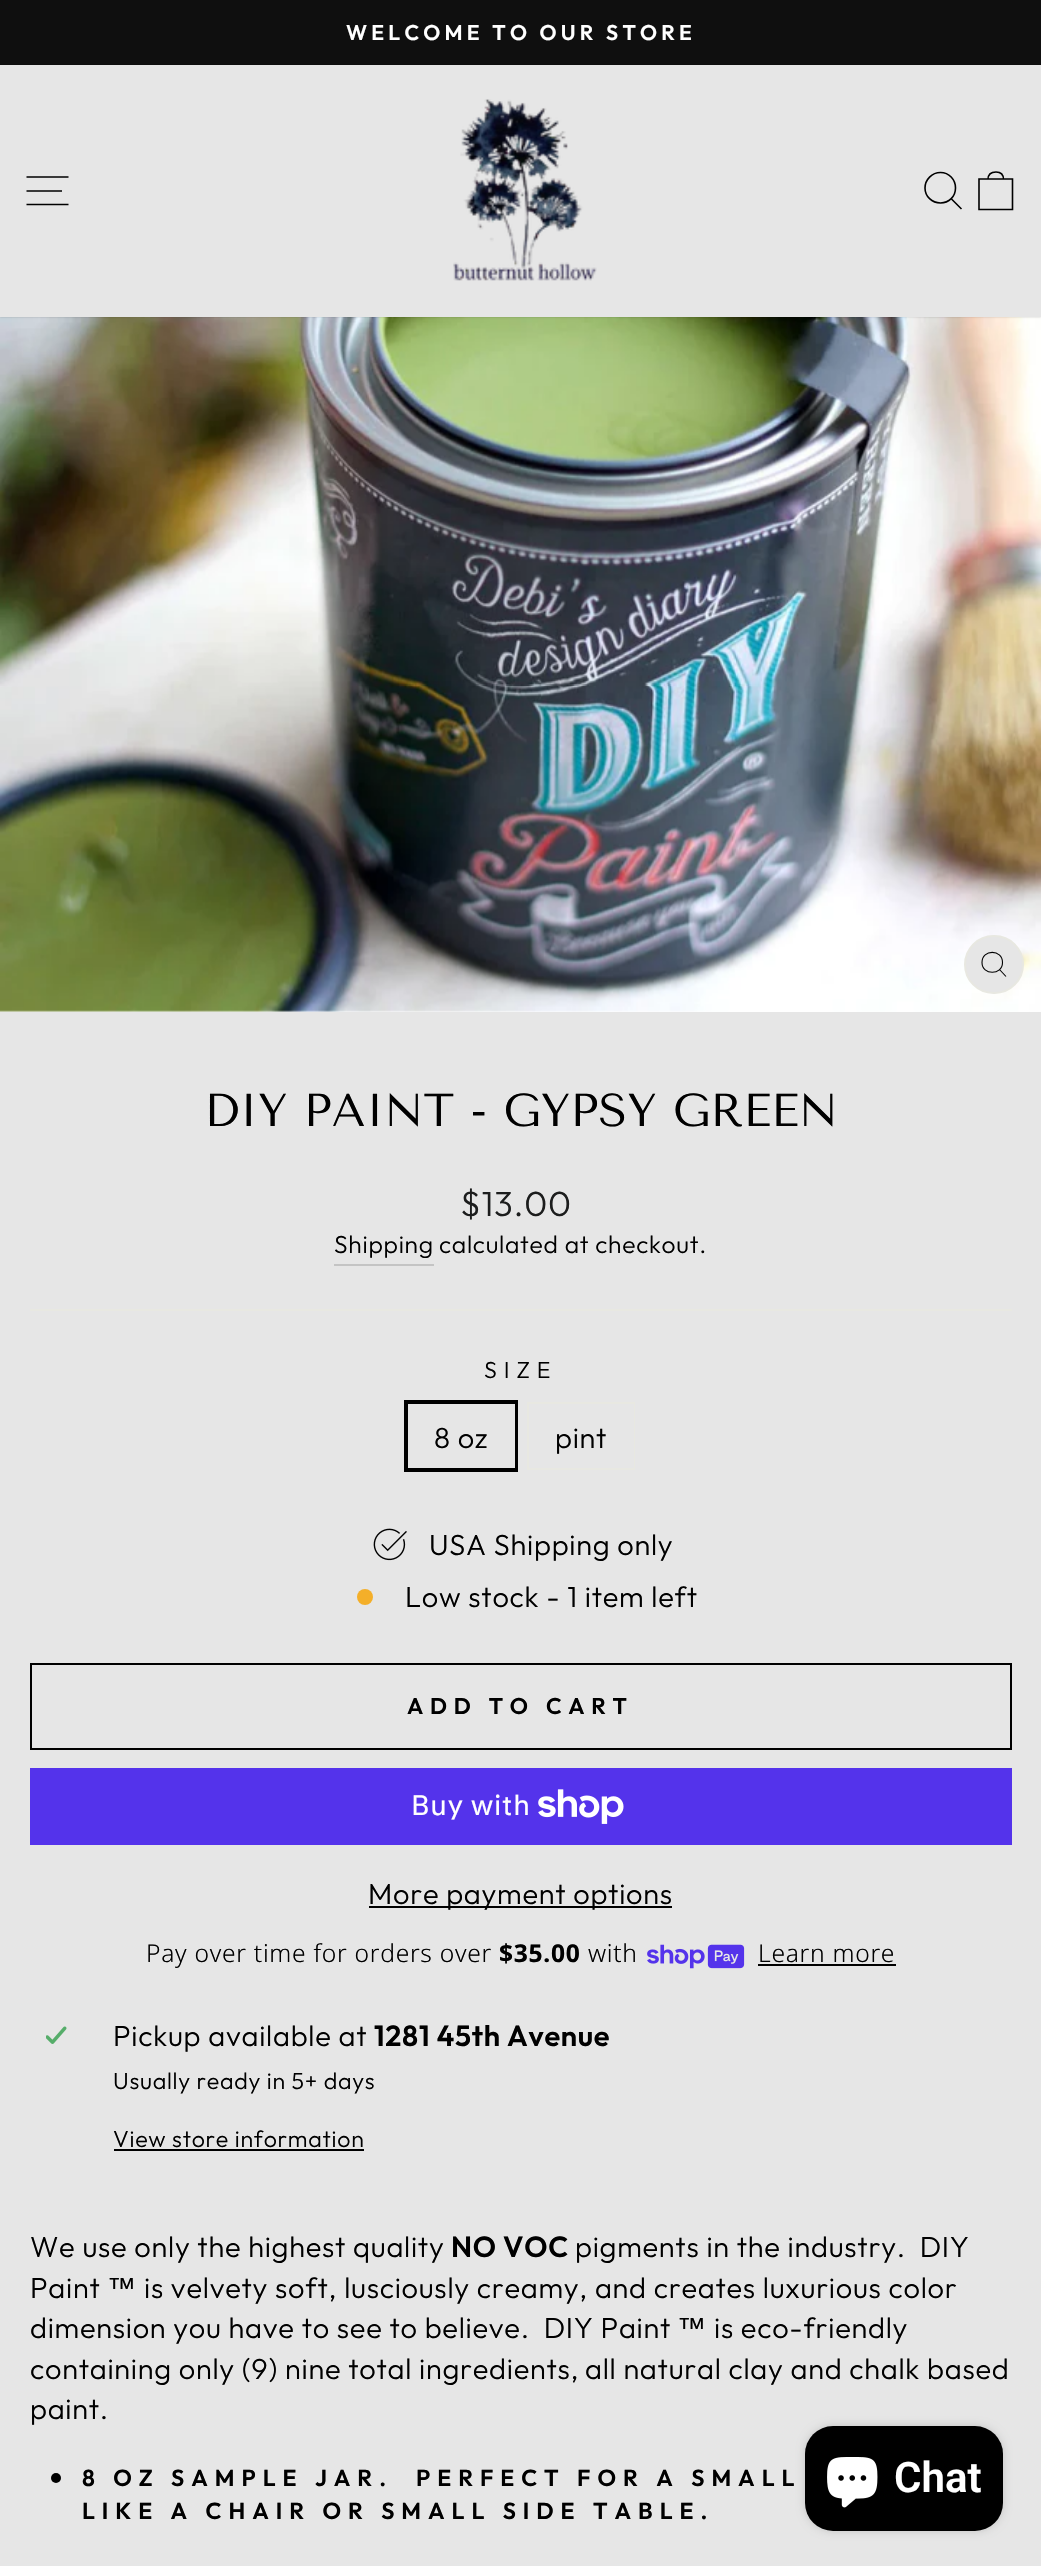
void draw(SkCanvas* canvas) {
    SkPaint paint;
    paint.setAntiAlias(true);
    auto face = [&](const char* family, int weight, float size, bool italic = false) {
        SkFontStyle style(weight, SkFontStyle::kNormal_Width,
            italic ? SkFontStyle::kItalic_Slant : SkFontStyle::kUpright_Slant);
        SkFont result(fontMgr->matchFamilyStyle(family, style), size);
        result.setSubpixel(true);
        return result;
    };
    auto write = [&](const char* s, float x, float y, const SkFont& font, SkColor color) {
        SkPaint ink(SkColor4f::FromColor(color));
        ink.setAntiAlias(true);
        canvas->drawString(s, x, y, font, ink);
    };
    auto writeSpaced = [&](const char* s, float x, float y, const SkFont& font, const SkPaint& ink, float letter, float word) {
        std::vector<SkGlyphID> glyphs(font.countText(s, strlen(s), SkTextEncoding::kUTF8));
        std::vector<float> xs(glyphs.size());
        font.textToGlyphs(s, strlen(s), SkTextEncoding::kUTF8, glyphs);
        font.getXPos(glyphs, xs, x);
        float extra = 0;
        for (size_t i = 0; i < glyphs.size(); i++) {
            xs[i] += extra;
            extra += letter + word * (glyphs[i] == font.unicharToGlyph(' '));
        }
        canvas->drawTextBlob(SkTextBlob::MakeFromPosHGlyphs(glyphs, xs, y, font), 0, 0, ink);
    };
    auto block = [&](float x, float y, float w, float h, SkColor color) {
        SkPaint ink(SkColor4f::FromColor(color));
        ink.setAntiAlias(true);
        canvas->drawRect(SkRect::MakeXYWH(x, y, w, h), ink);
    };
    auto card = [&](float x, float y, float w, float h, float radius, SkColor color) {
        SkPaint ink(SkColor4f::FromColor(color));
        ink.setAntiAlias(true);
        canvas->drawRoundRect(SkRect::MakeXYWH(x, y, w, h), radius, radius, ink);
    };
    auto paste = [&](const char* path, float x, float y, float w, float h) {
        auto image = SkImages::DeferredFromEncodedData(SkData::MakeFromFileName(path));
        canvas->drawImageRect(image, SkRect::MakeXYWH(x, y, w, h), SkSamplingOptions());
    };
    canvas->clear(SkColorSetRGB(230, 230, 230));
    block(0, 0, 1041, 65, SkColorSetRGB(15, 15, 15));
    auto kFont1 = face("Outfit", 600, 21.25f);
    paint.setColor(SK_ColorWHITE);
    writeSpaced("WELCOME TO OUR STORE", 346, 40, kFont1, paint, 4.25f, 0);
    block(0, 1010, 1041, 2, SK_ColorWHITE);
    paste("pic2.png", 0, 317, 1041, 695);
    paint.setColor(SkColorSetARGB(51, 0, 0, 0));
    paint.setMaskFilter(SkMaskFilter::MakeBlur(kNormal_SkBlurStyle, 1));
    canvas->drawRect(SkRect::MakeXYWH(0, 65, 1041, 252), paint);
    paint.setMaskFilter(nullptr);
    block(0, 65, 1041, 252, SkColorSetRGB(230, 230, 230));
    paint.setStyle(SkPaint::kStroke_Style);
    paint.setStrokeWidth(1.6f);
    paint.setColor(SK_ColorBLACK);
    canvas->drawPath(SkPathBuilder().moveTo(26.5f, 177).lineTo(68.5f, 177).moveTo(26.5f, 191).lineTo(62, 191).moveTo(26.5f, 204.5f).lineTo(68.5f, 204.5f).detach(), paint);
    paste("pic1.png", 453, 99, 144, 182);
    canvas->drawPath(SkPathBuilder().moveTo(955.5f, 188).cubicTo(955.5f, 196.5f, 949, 203, 940.5f, 203).cubicTo(932, 203, 925, 196.5f, 925, 188).cubicTo(925, 179.5f, 932, 172.5f, 940.5f, 172.5f).cubicTo(949, 172.5f, 955.5f, 179.5f, 955.5f, 188).close().moveTo(961.5f, 209).lineTo(951.5f, 199).detach(), paint);
    canvas->drawPath(SkPathBuilder().moveTo(979, 179).lineTo(1012.5f, 179).lineTo(1012.5f, 209.5f).lineTo(979, 209.5f).close().moveTo(988, 179.5f).cubicTo(988, 173.5f, 991.5f, 172, 996, 172).cubicTo(1000, 172, 1003.5f, 173.5f, 1003.5f, 179.5f).detach(), paint);
    paint.setStyle(SkPaint::kFill_Style);
    paint.setColor(SkColorSetRGB(230, 230, 230));
    canvas->drawRoundRect(SkRect::MakeXYWH(965, 936, 58, 57), 28.5f, 28.5f, paint);
    paint.setStyle(SkPaint::kStroke_Style);
    paint.setStrokeWidth(2);
    paint.setColor(SkColorSetRGB(232, 232, 225));
    canvas->drawRoundRect(SkRect::MakeXYWH(965, 936, 58, 57), 28.5f, 28.5f, paint);
    paint.setStrokeWidth(1.1f);
    paint.setColor(SK_ColorBLACK);
    canvas->drawPath(SkPathBuilder().moveTo(1002.5f, 962.5f).cubicTo(1002.5f, 975.5f, 982, 975.5f, 982, 962.5f).cubicTo(982, 949, 1002.5f, 949, 1002.5f, 962.5f).close().moveTo(1006, 976.5f).lineTo(999.5f, 969.5f).detach(), paint);
    auto kFont2 = face("Tenor Sans", 400, 46);
    write("DIY PAINT - GYPSY GREEN", 204, 1126, kFont2, SK_ColorBLACK);
    auto kFont3 = face("Outfit", 300, 35);
    paint.setStyle(SkPaint::kFill_Style);
    paint.setColor(SkColorSetRGB(28, 29, 29));
    writeSpaced("$13.00", 460, 1216, kFont3, paint, 0.72f, 0);
    block(334, 1264, 100, 2, SkColorSetRGB(196, 196, 196));
    auto kFont4 = face("Outfit", 300, 24.6f);
    paint.setColor(SK_ColorBLACK);
    writeSpaced("Shipping", 334, 1253, kFont4, paint, 0.72f, 0);
    writeSpaced("calculated at checkout.", 439, 1253, kFont4, paint, 0.72f, 0);
    block(30, 1309, 982, 2, SkColorSetRGB(232, 232, 225));
    auto kFont5 = face("Outfit", 300, 23.2f);
    writeSpaced("SIZE", 484, 1378, kFont5, paint, 6.95f, 0);
    paint.setStyle(SkPaint::kStroke_Style);
    paint.setStrokeWidth(4);
    canvas->drawRect(SkRect::MakeXYWH(406, 1402, 110, 68), paint);
    block(514, 1404, 1, 64, SkColorSetRGB(230, 230, 230));
    auto kFont6 = face("Outfit", 300, 29);
    paint.setStyle(SkPaint::kFill_Style);
    writeSpaced("8 oz", 434, 1448, kFont6, paint, 0.72f, 0);
    paint.setStyle(SkPaint::kStroke_Style);
    paint.setStrokeWidth(2);
    paint.setColor(SkColorSetRGB(232, 232, 225));
    canvas->drawRect(SkRect::MakeXYWH(528, 1403, 106, 66), paint);
    block(633, 1404, 1, 64, SkColorSetRGB(230, 230, 230));
    paint.setStyle(SkPaint::kFill_Style);
    paint.setColor(SK_ColorBLACK);
    writeSpaced("pint", 555, 1448, kFont6, paint, 0.72f, 0);
    paste("pic3.png", 373, 1528, 34, 33);
    writeSpaced("USA Shipping only", 429, 1555, kFont6, paint, 0.72f, 0);
    paint.setColor(SkColorSetRGB(244, 175, 41));
    canvas->drawCircle(365, 1597, 8, paint);
    paint.setColor(SK_ColorBLACK);
    writeSpaced("Low stock - 1 item left", 405, 1607, kFont6, paint, 0.72f, 0);
    paint.setStyle(SkPaint::kStroke_Style);
    canvas->drawRect(SkRect::MakeXYWH(31, 1664, 980, 85), paint);
    auto kFont7 = face("Outfit", 600, 22.75f);
    paint.setStyle(SkPaint::kFill_Style);
    writeSpaced("ADD TO CART", 407, 1714, kFont7, paint, 6.75f, 0);
    block(30, 1768, 982, 77, SkColorSetRGB(84, 51, 235));
    auto kFont8 = face("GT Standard", 400, 28);
    paint.setColor(SK_ColorWHITE);
    writeSpaced("Buy with", 411, 1815, kFont8, paint, 0.72f, 0);
    paste("pic4.png", 538, 1789, 86, 35);
    block(369, 1906, 303, 2, SK_ColorBLACK);
    paint.setColor(SK_ColorBLACK);
    writeSpaced("More payment options", 368, 1904, kFont6, paint, 0.72f, 0);
    auto kFont9 = face("Noto Sans", 300, 24.6f);
    writeSpaced("Pay over time for orders over", 146, 1962, kFont9, paint, 0.72f, 0);
    auto kFont10 = face("Noto Sans", 700, 24.6f);
    writeSpaced("$35.00", 499, 1962, kFont10, paint, 0.72f, 0);
    writeSpaced("with", 588, 1962, kFont9, paint, 0.72f, 0);
    paste("pic5.png", 647, 1944, 98, 25);
    writeSpaced("Learn more", 758, 1962, kFont9, paint, 0.72f, 0);
    block(758, 1964, 138, 2, SK_ColorBLACK);
    paste("pic6.png", 46, 2026, 21, 18);
    writeSpaced("Pickup available at", 113, 2046, kFont6, paint, 0.72f, 0);
    auto kFont11 = face("Outfit", 600, 29);
    writeSpaced("1281 45th Avenue", 374, 2046, kFont11, paint, 0.72f, 0);
    writeSpaced("Usually ready in 5+ days", 113, 2089, kFont5, paint, 0.72f, 0);
    writeSpaced("View store information", 113, 2147, kFont5, paint, 0.72f, 0);
    block(114, 2149, 250, 2, SK_ColorBLACK);
    writeSpaced("We use only the highest quality", 30, 2257, kFont6, paint, 0.72f, 0);
    writeSpaced("NO VOC", 451, 2257, kFont11, paint, 0.72f, 0);
    writeSpaced("pigments in the industry.  DIY", 575, 2257, kFont6, paint, 0.72f, 0);
    writeSpaced("Paint", 30, 2298, kFont6, paint, 0.72f, 0);
    auto kFont12 = face("Liberation Sans", 400, 29);
    writeSpaced("™", 107, 2298, kFont12, paint, 0.72f, 0);
    writeSpaced("is velvety soft, lusciously creamy, and creates luxurious color", 144, 2298, kFont6, paint, 0.72f, 0);
    writeSpaced("dimension you have to see to believe.  DIY Paint", 30, 2338, kFont6, paint, 0.72f, 0);
    writeSpaced("™", 677, 2338, kFont12, paint, 0.72f, 0);
    writeSpaced("is eco-friendly", 714, 2338, kFont6, paint, 0.72f, 0);
    writeSpaced("containing only (9) nine total ingredients,", 30, 2379, kFont6, paint, 0.72f, 0);
    writeSpaced("all natural clay and chalk based", 585, 2379, kFont6, paint, 0.72f, 0);
    writeSpaced("paint.", 30, 2419, kFont6, paint, 0.72f, 0);
    canvas->drawCircle(56, 2478, 5, paint);
    auto kFont13 = face("Outfit", 600, 23.2f);
    writeSpaced("8 OZ SAMPLE JAR.", 82, 2486, kFont13, paint, 6.95f, 0);
    writeSpaced("PERFECT FOR A SMALL", 416, 2486, kFont13, paint, 6.95f, 0);
    writeSpaced("LIKE A CHAIR OR SMALL SIDE TABLE.", 82, 2519, kFont13, paint, 6.95f, 0);
    paint.setColor(SkColorSetARGB(38, 0, 0, 0));
    paint.setMaskFilter(SkMaskFilter::MakeBlur(kNormal_SkBlurStyle, 4.5f));
    canvas->drawRoundRect(SkRect::MakeXYWH(805, 2426, 198, 105), 28, 28, paint);
    paint.setMaskFilter(nullptr);
    card(805, 2426, 198, 105, 28, SK_ColorBLACK);
    paste("pic7.png", 827, 2457, 51, 51);
    auto kFont14 = face("Roboto", 600, 42);
    write("Chat", 894, 2492, kFont14, SK_ColorWHITE);
}
